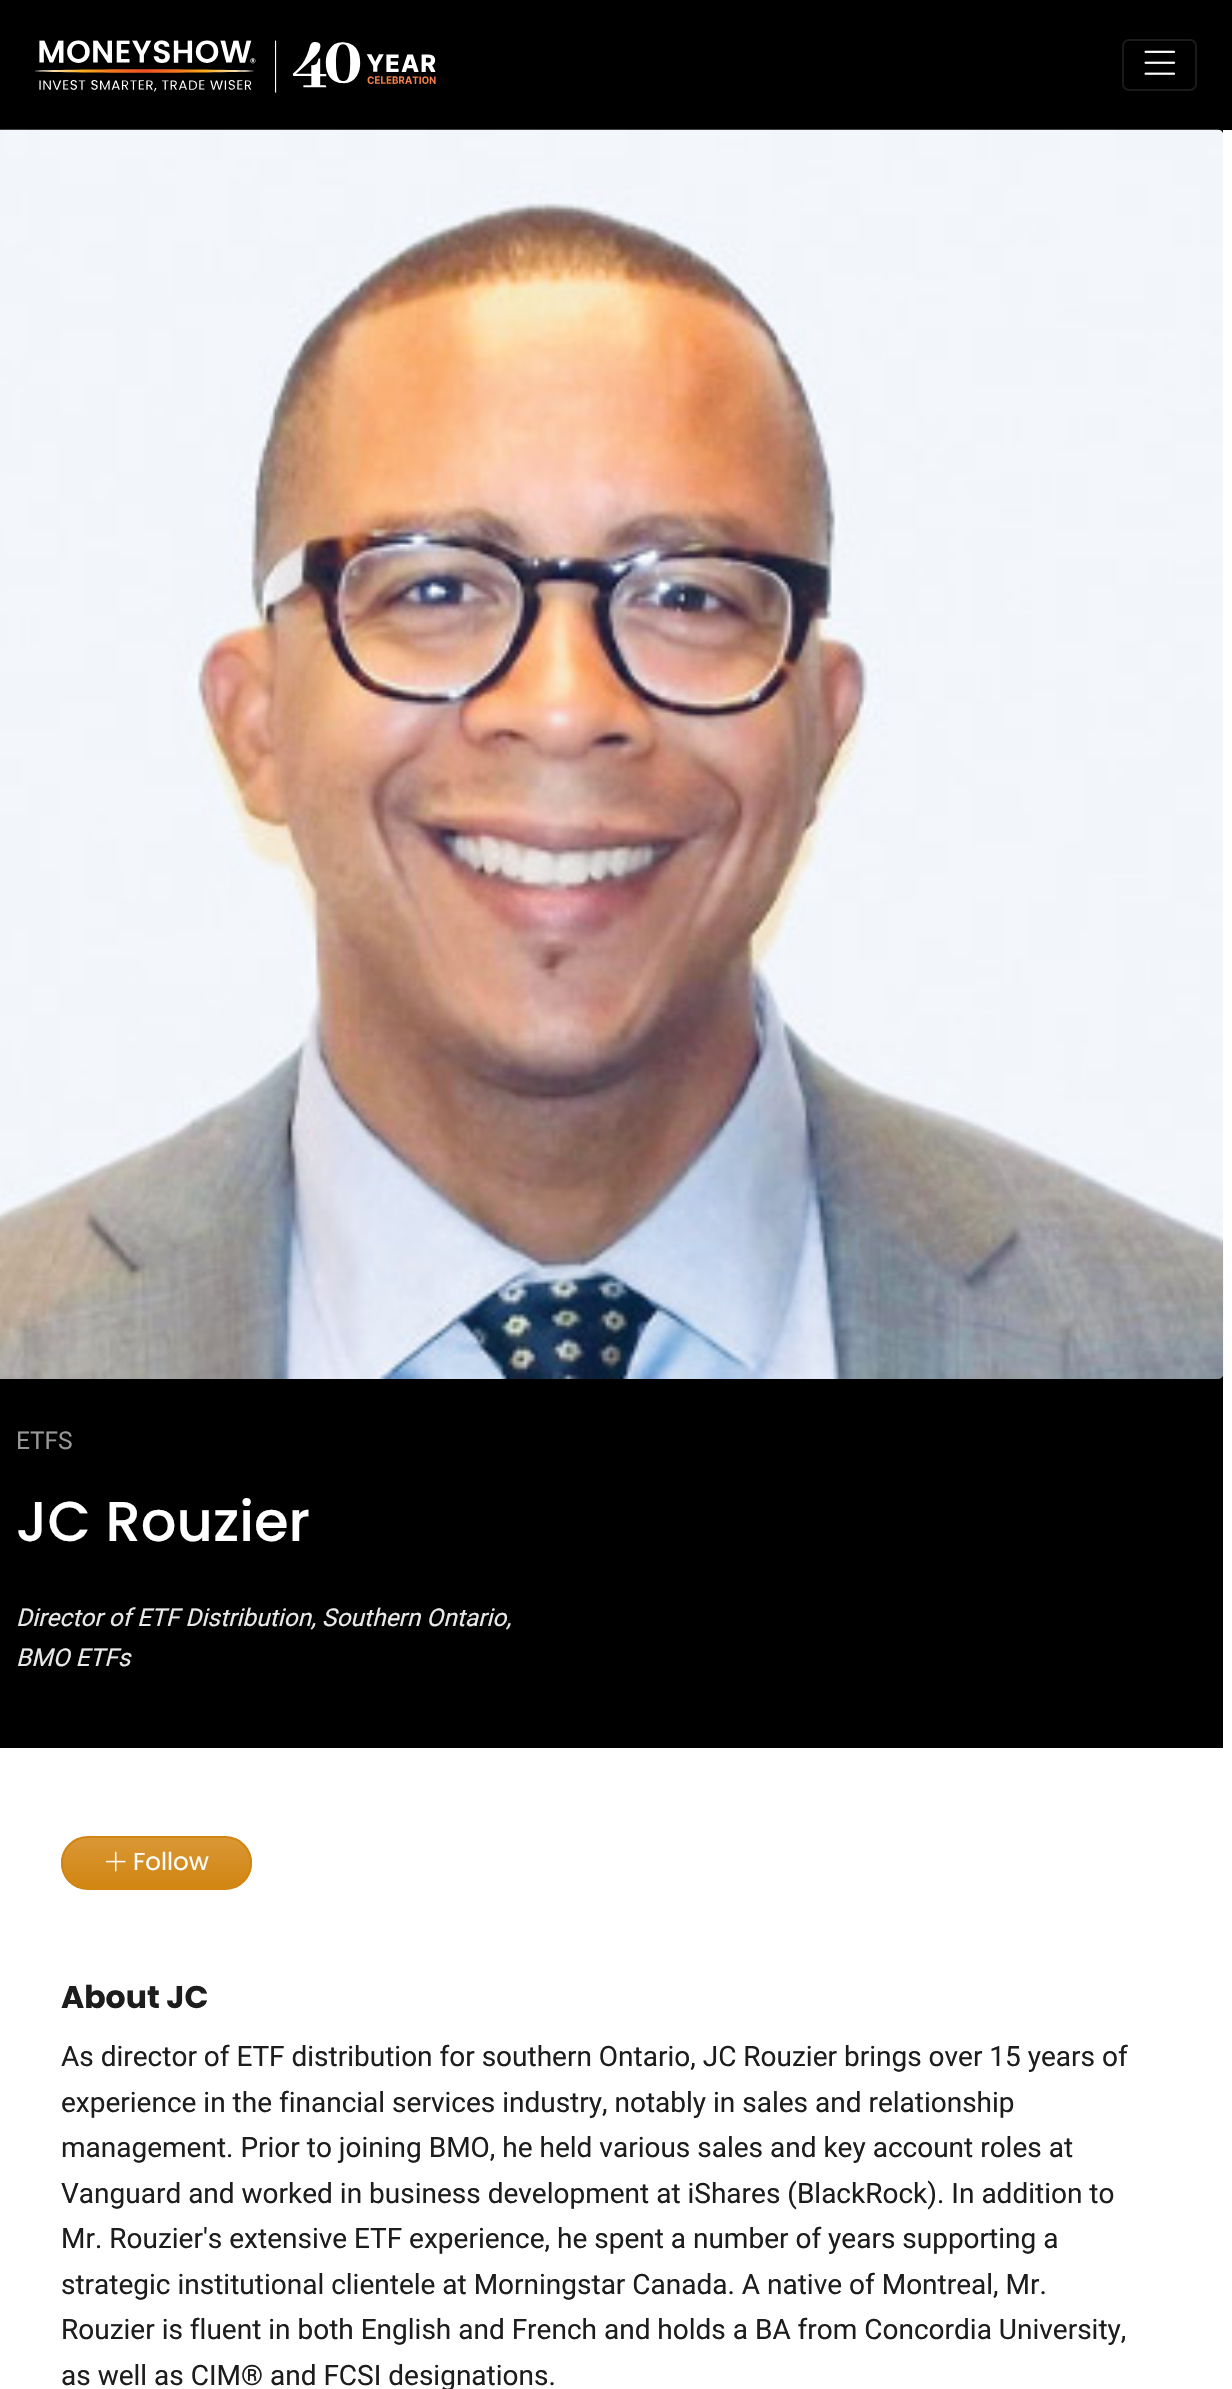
void draw(SkCanvas* canvas) {
    SkPaint paint;
    paint.setAntiAlias(true);
    auto face = [&](const char* family, int weight, float size, bool italic = false) {
        SkFontStyle style(weight, SkFontStyle::kNormal_Width,
            italic ? SkFontStyle::kItalic_Slant : SkFontStyle::kUpright_Slant);
        SkFont result(fontMgr->matchFamilyStyle(family, style), size);
        result.setSubpixel(true);
        return result;
    };
    auto write = [&](const char* s, float x, float y, const SkFont& font, SkColor color) {
        SkPaint ink(SkColor4f::FromColor(color));
        ink.setAntiAlias(true);
        canvas->drawString(s, x, y, font, ink);
    };
    auto block = [&](float x, float y, float w, float h, SkColor color) {
        SkPaint ink(SkColor4f::FromColor(color));
        ink.setAntiAlias(true);
        canvas->drawRect(SkRect::MakeXYWH(x, y, w, h), ink);
    };
    auto paste = [&](const char* path, float x, float y, float w, float h) {
        auto image = SkImages::DeferredFromEncodedData(SkData::MakeFromFileName(path));
        canvas->drawImageRect(image, SkRect::MakeXYWH(x, y, w, h), SkSamplingOptions());
    };
    canvas->clear(SK_ColorWHITE);
    block(0, 0, 1232, 130, SK_ColorBLACK);
    paste("pic1.png", 35, 40, 401, 53);
    paint.setStyle(SkPaint::kStroke_Style);
    paint.setStrokeWidth(2);
    paint.setColor(SkColorSetRGB(26, 26, 26));
    canvas->drawRoundRect(SkRect::MakeXYWH(1123, 40, 73, 50), 6, 6, paint);
    paste("pic2.png", 1144, 50, 32, 25);
    block(0, 130, 1223, 1618, SK_ColorBLACK);
    paste("pic3.png", 0, 129, 1224, 1250);
    auto kFont1 = face("Roboto", 400, 24.5f);
    write("ETFS", 16, 1449, kFont1, SkColorSetRGB(151, 151, 151));
    auto kFont2 = face("Poppins", 500, 56);
    write("JC Rouzier", 16, 1541, kFont2, SK_ColorWHITE);
    auto kFont3 = face("Roboto", 400, 24.5f, true);
    write("Director of ETF Distribution, Southern Ontario,", 16, 1626, kFont3, SkColorSetRGB(233, 233, 233));
    write("BMO ETFs", 16, 1666, kFont3, SkColorSetRGB(233, 233, 233));
    canvas->save();
    canvas->clipPath(SkPathBuilder().moveTo(88, 1836).lineTo(225, 1836).cubicTo(240, 1836, 252, 1848, 252, 1863).cubicTo(252, 1878, 240, 1890, 225, 1890).lineTo(88, 1890).cubicTo(73, 1890, 61, 1878, 61, 1863).cubicTo(61, 1848, 73, 1836, 88, 1836).close().detach(), true);
    paint.setStyle(SkPaint::kFill_Style);
    {
        const SkColor colors[] = {SkColorSetRGB(217, 151, 53), SkColorSetRGB(210, 133, 17)};
        const float stops[] = {0, 1};
        const SkPoint ends[] = {{157, 1838}, {157, 1888}};
        paint.setShader(SkGradientShader::MakeLinear(ends, colors, stops, 2, SkTileMode::kClamp));
        paint.setAlpha(255);
    }
    canvas->drawRect(SkRect::MakeXYWH(61, 1838, 191, 50), paint);
    canvas->restore();
    paint.setStyle(SkPaint::kStroke_Style);
    paint.setShader(nullptr);
    paint.setColor(SkColorSetRGB(210, 133, 17));
    canvas->drawRoundRect(SkRect::MakeXYWH(62, 1837, 189, 52), 26, 26, paint);
    paste("pic4.png", 105, 1851, 21, 21);
    auto kFont4 = face("Poppins", 400, 24.5f);
    write("Follow", 133, 1870, kFont4, SK_ColorWHITE);
    auto kFont5 = face("Poppins", 700, 31.5f);
    write("About JC", 61, 2008, kFont5, SkColorSetRGB(29, 29, 29));
    auto kFont6 = face("Roboto", 400, 28);
    write("As director of ETF distribution for southern Ontario, JC Rouzier brings over 15 years of", 61, 2066, kFont6, SkColorSetRGB(29, 29, 29));
    write("experience in the financial services industry, notably in sales and relationship", 61, 2112, kFont6, SkColorSetRGB(29, 29, 29));
    write("management. Prior to joining BMO, he held various sales and key account roles at", 61, 2157, kFont6, SkColorSetRGB(29, 29, 29));
    write("Vanguard and worked in business development at iShares (BlackRock). In addition to", 61, 2203, kFont6, SkColorSetRGB(29, 29, 29));
    write("Mr. Rouzier's extensive ETF experience, he spent a number of years supporting a", 61, 2248, kFont6, SkColorSetRGB(29, 29, 29));
    write("strategic institutional clientele at Morningstar Canada. A native of Montreal, Mr.", 61, 2294, kFont6, SkColorSetRGB(29, 29, 29));
    write("Rouzier is fluent in both English and French and holds a BA from Concordia University,", 61, 2339, kFont6, SkColorSetRGB(29, 29, 29));
    write("as well as CIM® and FCSI designations.", 61, 2385, kFont6, SkColorSetRGB(29, 29, 29));
}
